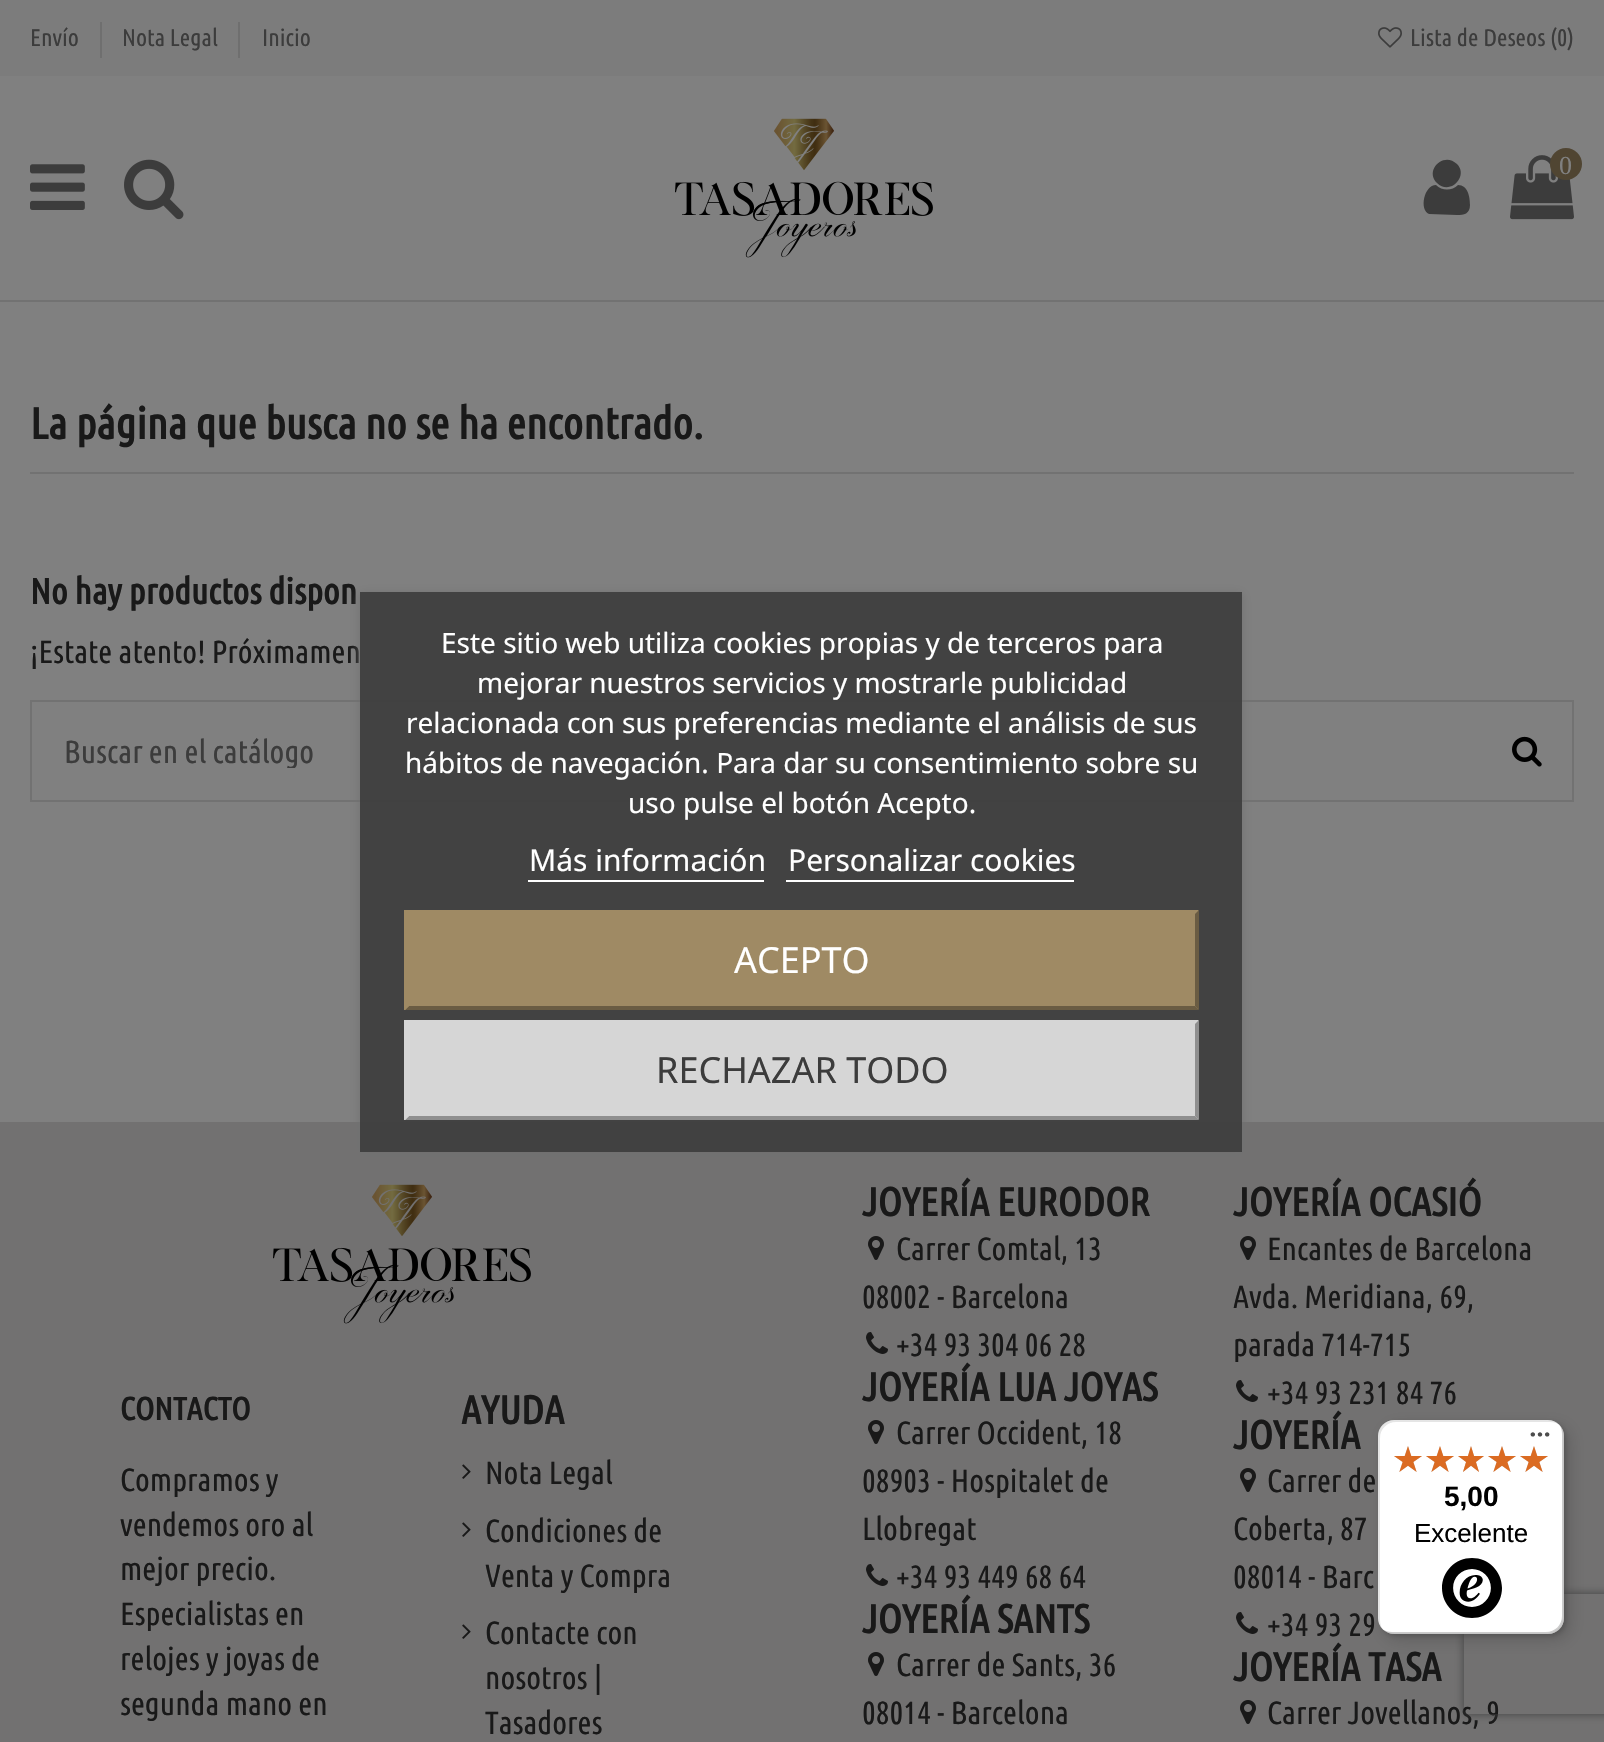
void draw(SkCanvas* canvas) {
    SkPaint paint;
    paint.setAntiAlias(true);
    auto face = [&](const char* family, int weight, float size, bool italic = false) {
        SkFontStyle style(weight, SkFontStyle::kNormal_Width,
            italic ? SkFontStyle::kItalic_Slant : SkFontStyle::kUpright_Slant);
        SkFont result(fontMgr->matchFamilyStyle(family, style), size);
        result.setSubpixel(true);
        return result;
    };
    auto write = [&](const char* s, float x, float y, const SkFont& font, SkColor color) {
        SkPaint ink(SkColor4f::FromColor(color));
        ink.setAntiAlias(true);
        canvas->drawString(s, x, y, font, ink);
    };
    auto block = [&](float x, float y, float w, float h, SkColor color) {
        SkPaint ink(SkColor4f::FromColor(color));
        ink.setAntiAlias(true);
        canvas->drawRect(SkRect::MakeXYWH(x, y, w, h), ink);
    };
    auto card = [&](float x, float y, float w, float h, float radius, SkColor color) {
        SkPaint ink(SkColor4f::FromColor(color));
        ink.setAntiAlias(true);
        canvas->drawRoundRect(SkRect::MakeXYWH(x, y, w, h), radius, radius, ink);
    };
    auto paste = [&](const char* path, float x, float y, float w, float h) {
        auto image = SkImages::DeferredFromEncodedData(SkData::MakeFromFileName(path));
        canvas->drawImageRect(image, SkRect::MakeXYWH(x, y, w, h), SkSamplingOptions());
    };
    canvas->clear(SkColorSetRGB(128, 128, 128));
    block(0, 0, 1604, 76, SkColorSetRGB(124, 124, 124));
    auto kFont1 = face("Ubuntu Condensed", 400, 24);
    write("Envío", 30, 46, kFont1, SkColorSetRGB(60, 60, 60));
    block(100, 22, 2, 36, SkColorSetRGB(111, 111, 111));
    write("Nota Legal", 122, 46, kFont1, SkColorSetRGB(60, 60, 60));
    block(238, 22, 2, 36, SkColorSetRGB(111, 111, 111));
    write("Inicio", 262, 46, kFont1, SkColorSetRGB(60, 60, 60));
    paste("pic1.png", 1378, 27, 24, 21);
    write("Lista de Deseos (0)", 1410, 46, kFont1, SkColorSetRGB(60, 60, 60));
    block(0, 300, 1604, 2, SkColorSetRGB(114, 114, 114));
    paste("pic2.png", 30, 164, 55, 46);
    paste("pic3.png", 124, 159, 60, 61);
    paste("pic4.png", 675, 118, 258, 140);
    paint.setColor(SkColorSetRGB(60, 60, 60));
    canvas->drawPath(SkPathBuilder().moveTo(1470, 205).cubicTo(1470, 214, 1464, 215, 1457, 215).lineTo(1429, 214).cubicTo(1419, 210, 1424, 185, 1436, 185).cubicTo(1442, 191, 1452, 191, 1458, 185).cubicTo(1468, 185, 1470, 197, 1470, 205).close().moveTo(1457, 164).cubicTo(1469, 176, 1450, 196, 1437, 183).cubicTo(1424, 170, 1444, 151, 1457, 164).close().detach(), paint);
    paste("pic5.png", 1510, 155, 64, 65);
    paint.setColor(SkColorSetRGB(80, 69, 50));
    canvas->drawCircle(1566, 164, 16, paint);
    auto kFont2 = face("Liberation Serif", 400, 26);
    write("0", 1559, 174, kFont2, SkColorSetRGB(128, 128, 128));
    block(30, 472, 1544, 2, SkColorSetRGB(114, 114, 114));
    auto kFont3 = face("Ubuntu Condensed", 700, 44);
    write("La página que busca no se ha encontrado.", 30, 439, kFont3, SkColorSetRGB(25, 25, 25));
    auto kFont4 = face("Ubuntu Condensed", 700, 36);
    write("No hay productos dispon", 30, 604, kFont4, SkColorSetRGB(25, 25, 25));
    auto kFont5 = face("Ubuntu Condensed", 400, 32);
    write("¡Estate atento! Próximamen", 30, 663, kFont5, SkColorSetRGB(25, 25, 25));
    paint.setStyle(SkPaint::kStroke_Style);
    paint.setStrokeWidth(2);
    paint.setColor(SkColorSetRGB(114, 114, 114));
    canvas->drawRect(SkRect::MakeXYWH(31, 701, 1542, 100), paint);
    canvas->save();
    canvas->clipRect(SkRect::MakeXYWH(64, 732, 1444, 36));
    write("Buscar en el catálogo", 64, 763, kFont5, SkColorSetRGB(60, 60, 60));
    canvas->restore();
    paste("pic6.png", 1512, 736, 30, 31);
    block(0, 1122, 1604, 620, SkColorSetRGB(114, 113, 113));
    paste("pic7.png", 273, 1184, 258, 140);
    auto kFont6 = face("Ubuntu Condensed", 700, 32);
    write("CONTACTO", 120, 1420, kFont6, SkColorSetRGB(25, 25, 25));
    write("Compramos y", 120, 1491, kFont5, SkColorSetRGB(25, 25, 25));
    write("vendemos oro al", 120, 1536, kFont5, SkColorSetRGB(25, 25, 25));
    write("mejor precio.", 120, 1580, kFont5, SkColorSetRGB(25, 25, 25));
    write("Especialistas en", 120, 1625, kFont5, SkColorSetRGB(25, 25, 25));
    write("relojes y joyas de", 120, 1670, kFont5, SkColorSetRGB(25, 25, 25));
    write("segunda mano en", 120, 1715, kFont5, SkColorSetRGB(25, 25, 25));
    auto kFont7 = face("Ubuntu Condensed", 700, 40);
    write("AYUDA", 461, 1424, kFont7, SkColorSetRGB(25, 25, 25));
    paste("pic8.png", 462, 1464, 9, 15);
    write("Nota Legal", 485, 1484, kFont5, SkColorSetRGB(25, 25, 25));
    paste("pic8.png", 462, 1522, 9, 15);
    write("Condiciones de", 485, 1542, kFont5, SkColorSetRGB(25, 25, 25));
    write("Venta y Compra", 485, 1587, kFont5, SkColorSetRGB(25, 25, 25));
    paste("pic8.png", 462, 1624, 9, 15);
    write("Contacte con", 485, 1644, kFont5, SkColorSetRGB(25, 25, 25));
    write("nosotros |", 485, 1689, kFont5, SkColorSetRGB(25, 25, 25));
    write("Tasadores", 485, 1734, kFont5, SkColorSetRGB(25, 25, 25));
    write("JOYERÍA EURODOR", 862, 1216, kFont7, SkColorSetRGB(25, 25, 25));
    paste("pic9.png", 868, 1236, 16, 24);
    write("Carrer Comtal, 13", 896, 1260, kFont5, SkColorSetRGB(25, 25, 25));
    write("08002 - Barcelona", 862, 1308, kFont5, SkColorSetRGB(25, 25, 25));
    paste("pic10.png", 866, 1332, 22, 22);
    write("+34 93 304 06 28", 896, 1356, kFont5, SkColorSetRGB(25, 25, 25));
    write("JOYERÍA LUA JOYAS", 862, 1401, kFont7, SkColorSetRGB(25, 25, 25));
    paste("pic9.png", 868, 1420, 16, 24);
    write("Carrer Occident, 18", 896, 1444, kFont5, SkColorSetRGB(25, 25, 25));
    write("08903 - Hospitalet de", 862, 1492, kFont5, SkColorSetRGB(25, 25, 25));
    write("Llobregat", 862, 1540, kFont5, SkColorSetRGB(25, 25, 25));
    paste("pic10.png", 866, 1564, 22, 22);
    write("+34 93 449 68 64", 896, 1588, kFont5, SkColorSetRGB(25, 25, 25));
    write("JOYERÍA SANTS", 862, 1633, kFont7, SkColorSetRGB(25, 25, 25));
    paste("pic9.png", 868, 1652, 16, 24);
    write("Carrer de Sants, 36", 896, 1676, kFont5, SkColorSetRGB(25, 25, 25));
    write("08014 - Barcelona", 862, 1724, kFont5, SkColorSetRGB(25, 25, 25));
    write("JOYERÍA OCASIÓ", 1233, 1216, kFont7, SkColorSetRGB(25, 25, 25));
    paste("pic9.png", 1240, 1236, 16, 24);
    write("Encantes de Barcelona", 1267, 1260, kFont5, SkColorSetRGB(25, 25, 25));
    write("Avda. Meridiana, 69,", 1233, 1308, kFont5, SkColorSetRGB(25, 25, 25));
    write("parada 714-715", 1233, 1356, kFont5, SkColorSetRGB(25, 25, 25));
    paste("pic10.png", 1236, 1380, 22, 22);
    write("+34 93 231 84 76", 1267, 1404, kFont5, SkColorSetRGB(25, 25, 25));
    write("JOYERÍA", 1233, 1449, kFont7, SkColorSetRGB(25, 25, 25));
    paste("pic9.png", 1240, 1468, 16, 24);
    write("Carrer de", 1267, 1492, kFont5, SkColorSetRGB(25, 25, 25));
    write("Coberta, 87", 1233, 1540, kFont5, SkColorSetRGB(25, 25, 25));
    write("08014 - Barc", 1233, 1588, kFont5, SkColorSetRGB(25, 25, 25));
    paste("pic10.png", 1236, 1612, 22, 22);
    write("+34 93 29", 1267, 1636, kFont5, SkColorSetRGB(25, 25, 25));
    write("JOYERÍA TASA", 1233, 1681, kFont7, SkColorSetRGB(25, 25, 25));
    paste("pic9.png", 1240, 1700, 16, 24);
    write("Carrer Jovellanos, 9", 1267, 1724, kFont5, SkColorSetRGB(25, 25, 25));
    canvas->save();
    canvas->clipPath(SkPathBuilder(SkPathFillType::kEvenOdd).moveTo(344, 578).lineTo(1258, 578).lineTo(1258, 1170).lineTo(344, 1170).close().moveTo(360, 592).lineTo(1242, 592).lineTo(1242, 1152).lineTo(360, 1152).close().detach(), true);
    paint.setStyle(SkPaint::kFill_Style);
    paint.setColor(SkColorSetRGB(112, 112, 112));
    paint.setMaskFilter(SkMaskFilter::MakeBlur(kNormal_SkBlurStyle, 5));
    canvas->drawRect(SkRect::MakeXYWH(360, 594, 882, 560), paint);
    paint.setMaskFilter(nullptr);
    canvas->restore();
    block(360, 592, 882, 560, SkColorSetARGB(230, 59, 59, 59));
    auto kFont8 = face("Noto Sans", 400, 28);
    write("Este sitio web utiliza cookies propias y de terceros para", 441, 653, kFont8, SK_ColorWHITE);
    write("mejorar nuestros servicios y mostrarle publicidad", 477, 693, kFont8, SK_ColorWHITE);
    write("relacionada con sus preferencias mediante el análisis de sus", 406, 733, kFont8, SK_ColorWHITE);
    write("hábitos de navegación. Para dar su consentimiento sobre su", 405, 773, kFont8, SK_ColorWHITE);
    write("uso pulse el botón Acepto.", 628, 813, kFont8, SK_ColorWHITE);
    auto kFont9 = face("Noto Sans", 400, 30);
    write("Más información", 529, 871, kFont9, SK_ColorWHITE);
    block(528, 880, 236, 2, SK_ColorWHITE);
    write("Personalizar cookies", 788, 871, kFont9, SK_ColorWHITE);
    block(786, 880, 288, 2, SK_ColorWHITE);
    block(404, 910, 794, 100, SkColorSetRGB(159, 138, 100));
    paint.setColor(SkColorSetRGB(159, 138, 100));
    canvas->drawPath(SkPathBuilder().moveTo(405, 910).lineTo(1199, 910).lineTo(1195, 914).lineTo(409, 914).close().detach(), paint);
    paint.setColor(SkColorSetRGB(106, 92, 67));
    canvas->drawPath(SkPathBuilder().moveTo(1199, 910).lineTo(1199, 1010).lineTo(1195, 1006).lineTo(1195, 914).close().detach(), paint);
    canvas->drawPath(SkPathBuilder().moveTo(1199, 1010).lineTo(405, 1010).lineTo(409, 1006).lineTo(1195, 1006).close().detach(), paint);
    paint.setColor(SkColorSetRGB(159, 138, 100));
    canvas->drawPath(SkPathBuilder().moveTo(405, 1010).lineTo(405, 910).lineTo(409, 914).lineTo(409, 1006).close().detach(), paint);
    auto kFont10 = face("Noto Sans", 400, 36);
    write("ACEPTO", 734, 973, kFont10, SK_ColorWHITE);
    block(404, 1020, 794, 100, SkColorSetRGB(214, 214, 214));
    paint.setColor(SkColorSetRGB(214, 214, 214));
    canvas->drawPath(SkPathBuilder().moveTo(405, 1020).lineTo(1199, 1020).lineTo(1195, 1024).lineTo(409, 1024).close().detach(), paint);
    paint.setColor(SkColorSetRGB(143, 143, 143));
    canvas->drawPath(SkPathBuilder().moveTo(1199, 1020).lineTo(1199, 1120).lineTo(1195, 1116).lineTo(1195, 1024).close().detach(), paint);
    canvas->drawPath(SkPathBuilder().moveTo(1199, 1120).lineTo(405, 1120).lineTo(409, 1116).lineTo(1195, 1116).close().detach(), paint);
    paint.setColor(SkColorSetRGB(214, 214, 214));
    canvas->drawPath(SkPathBuilder().moveTo(405, 1120).lineTo(405, 1020).lineTo(409, 1024).lineTo(409, 1116).close().detach(), paint);
    write("RECHAZAR TODO", 656, 1083, kFont10, SkColorSetRGB(60, 60, 60));
    paint.setColor(SkColorSetARGB(38, 0, 0, 0));
    paint.setMaskFilter(SkMaskFilter::MakeBlur(kNormal_SkBlurStyle, 8));
    canvas->drawRoundRect(SkRect::MakeXYWH(1384, 1426, 186, 214), 16, 16, paint);
    paint.setMaskFilter(nullptr);
    paint.setMaskFilter(SkMaskFilter::MakeBlur(kNormal_SkBlurStyle, 2));
    canvas->drawRoundRect(SkRect::MakeXYWH(1380, 1422, 186, 214), 16, 16, paint);
    paint.setMaskFilter(nullptr);
    canvas->save();
    canvas->clipPath(SkPathBuilder(SkPathFillType::kEvenOdd).moveTo(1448, 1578).lineTo(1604, 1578).lineTo(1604, 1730).lineTo(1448, 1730).close().moveTo(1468, 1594).lineTo(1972, 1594).cubicTo(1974, 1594, 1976, 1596, 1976, 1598).lineTo(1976, 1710).cubicTo(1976, 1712, 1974, 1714, 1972, 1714).lineTo(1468, 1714).cubicTo(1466, 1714, 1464, 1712, 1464, 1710).lineTo(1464, 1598).cubicTo(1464, 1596, 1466, 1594, 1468, 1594).close().detach(), true);
    paint.setColor(SkColorSetRGB(64, 64, 64));
    paint.setMaskFilter(SkMaskFilter::MakeBlur(kNormal_SkBlurStyle, 5));
    canvas->drawRoundRect(SkRect::MakeXYWH(1464, 1594, 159, 120), 4, 4, paint);
    paint.setMaskFilter(nullptr);
    canvas->restore();
    card(1378, 1420, 186, 214, 16, SK_ColorWHITE);
    paint.setColor(SkColorSetARGB(26, 0, 0, 0));
    canvas->drawPath(SkPathBuilder().moveTo(1396, 1422).lineTo(1550, 1422).cubicTo(1554, 1422, 1557, 1423, 1560, 1425).cubicTo(1557, 1422, 1553, 1420, 1548, 1420).lineTo(1394, 1420).cubicTo(1385, 1420, 1378, 1427, 1378, 1436).lineTo(1378, 1618).cubicTo(1378, 1623, 1380, 1627, 1383, 1630).cubicTo(1381, 1627, 1380, 1624, 1380, 1620).lineTo(1380, 1438).cubicTo(1380, 1429, 1387, 1422, 1396, 1422).close().detach(), paint);
    paint.setColor(SkColorSetARGB(51, 0, 0, 0));
    canvas->drawPath(SkPathBuilder().moveTo(1382, 1629).cubicTo(1385, 1632, 1389, 1634, 1394, 1634).lineTo(1548, 1634).cubicTo(1557, 1634, 1564, 1627, 1564, 1618).lineTo(1564, 1436).cubicTo(1564, 1431, 1562, 1427, 1559, 1424).cubicTo(1561, 1427, 1562, 1430, 1562, 1434).lineTo(1562, 1616).cubicTo(1562, 1625, 1555, 1632, 1546, 1632).lineTo(1392, 1632).cubicTo(1388, 1632, 1385, 1631, 1382, 1629).close().detach(), paint);
    paint.setColor(SkColorSetARGB(51, 50, 50, 50));
    canvas->drawPath(SkPathBuilder().moveTo(1383, 1629).cubicTo(1386, 1632, 1390, 1634, 1394, 1634).lineTo(1548, 1634).cubicTo(1557, 1634, 1564, 1627, 1564, 1618).lineTo(1564, 1436).cubicTo(1564, 1432, 1562, 1428, 1559, 1425).cubicTo(1562, 1428, 1563, 1431, 1563, 1435).lineTo(1563, 1617).cubicTo(1563, 1626, 1556, 1633, 1547, 1633).lineTo(1393, 1633).cubicTo(1389, 1633, 1386, 1632, 1383, 1629).close().detach(), paint);
    paint.setColor(SkColorSetARGB(77, 255, 255, 255));
    canvas->drawPath(SkPathBuilder().moveTo(1383, 1629).cubicTo(1386, 1632, 1390, 1634, 1394, 1634).lineTo(1548, 1634).cubicTo(1557, 1634, 1564, 1627, 1564, 1618).lineTo(1564, 1436).cubicTo(1564, 1432, 1562, 1428, 1559, 1425).cubicTo(1562, 1428, 1563, 1431, 1563, 1435).lineTo(1563, 1617).cubicTo(1563, 1626, 1556, 1633, 1547, 1633).lineTo(1393, 1633).cubicTo(1389, 1633, 1386, 1632, 1383, 1629).close().detach(), paint);
    paste("pic11.png", 1530, 1432, 20, 5);
    paste("pic12.png", 1394, 1446, 28, 26);
    paste("pic12.png", 1426, 1446, 28, 26);
    paste("pic13.png", 1458, 1446, 26, 26);
    paste("pic12.png", 1488, 1446, 28, 26);
    paste("pic12.png", 1520, 1446, 28, 26);
    paste("pic14.png", 1394, 1446, 28, 26);
    paste("pic14.png", 1426, 1446, 28, 26);
    paste("pic15.png", 1458, 1446, 26, 26);
    paste("pic14.png", 1488, 1446, 28, 26);
    paste("pic14.png", 1520, 1446, 28, 26);
    auto kFont11 = face("Liberation Sans", 700, 28);
    write("5,00", 1444, 1506, kFont11, SK_ColorBLACK);
    auto kFont12 = face("Liberation Sans", 400, 26);
    write("Excelente", 1414, 1542, kFont12, SK_ColorBLACK);
    paste("pic16.png", 1442, 1558, 60, 60);
}
